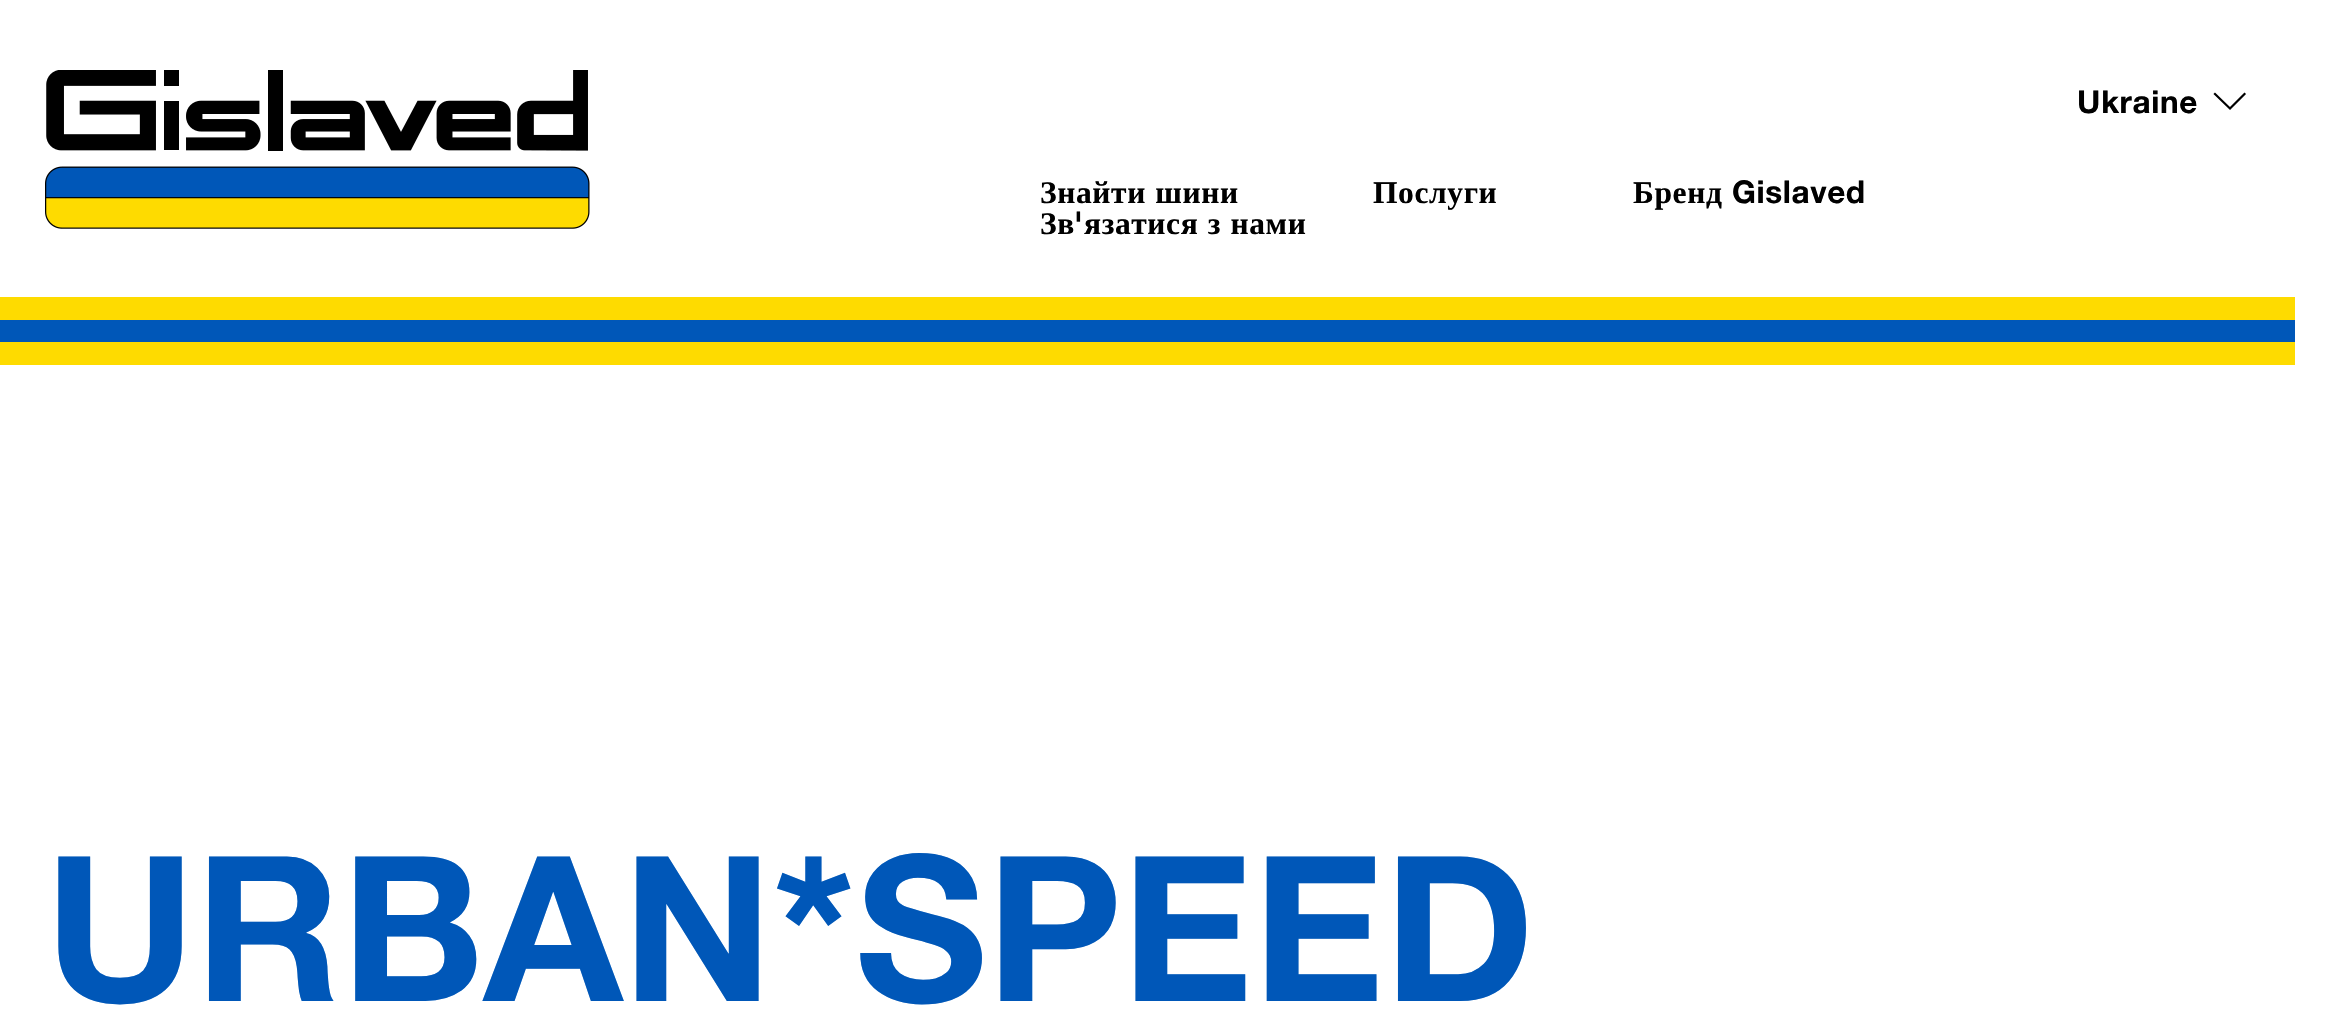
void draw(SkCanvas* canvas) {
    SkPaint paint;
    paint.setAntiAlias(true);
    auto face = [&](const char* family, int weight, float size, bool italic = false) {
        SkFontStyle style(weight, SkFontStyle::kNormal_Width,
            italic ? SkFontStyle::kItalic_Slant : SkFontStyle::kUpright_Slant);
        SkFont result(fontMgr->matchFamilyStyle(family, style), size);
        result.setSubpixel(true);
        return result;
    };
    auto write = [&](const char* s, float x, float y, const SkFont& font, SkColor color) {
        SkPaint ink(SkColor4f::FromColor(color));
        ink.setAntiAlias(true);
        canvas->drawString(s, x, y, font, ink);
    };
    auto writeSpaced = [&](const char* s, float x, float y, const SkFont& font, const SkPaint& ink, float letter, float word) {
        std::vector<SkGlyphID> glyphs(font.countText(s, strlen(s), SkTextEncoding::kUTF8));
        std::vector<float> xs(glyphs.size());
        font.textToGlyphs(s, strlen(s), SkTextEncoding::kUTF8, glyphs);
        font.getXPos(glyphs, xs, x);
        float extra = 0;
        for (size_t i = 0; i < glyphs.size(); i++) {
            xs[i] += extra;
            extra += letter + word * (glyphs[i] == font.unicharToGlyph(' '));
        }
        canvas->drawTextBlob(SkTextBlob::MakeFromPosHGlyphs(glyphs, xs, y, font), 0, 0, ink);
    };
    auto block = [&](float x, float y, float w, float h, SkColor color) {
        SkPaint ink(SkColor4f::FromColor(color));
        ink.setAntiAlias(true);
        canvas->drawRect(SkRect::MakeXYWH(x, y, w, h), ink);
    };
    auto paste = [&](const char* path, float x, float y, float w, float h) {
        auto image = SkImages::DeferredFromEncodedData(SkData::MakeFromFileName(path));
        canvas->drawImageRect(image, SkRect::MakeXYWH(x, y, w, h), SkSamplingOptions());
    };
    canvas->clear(SK_ColorWHITE);
    paste("pic1.png", 45, 70, 545, 159);
    auto kFont1 = face("Helvetica Neue", 400, 31.5f);
    paint.setColor(SK_ColorBLACK);
    writeSpaced("Ukraine", 2077, 113, kFont1, paint, 0.6f, 0);
    paint.setStyle(SkPaint::kStroke_Style);
    paint.setStrokeWidth(2.2f);
    paint.setStrokeCap(SkPaint::kSquare_Cap);
    canvas->drawPath(SkPathBuilder().moveTo(2215, 94).lineTo(2230, 108.5f).lineTo(2244.5f, 94).detach(), paint);
    auto kFont2 = face("Liberation Serif", 700, 31.5f);
    paint.setStyle(SkPaint::kFill_Style);
    writeSpaced("Знайти шини", 1040, 203, kFont2, paint, 0.6f, 1);
    writeSpaced("Послуги", 1373, 203, kFont2, paint, 0.6f, 0);
    writeSpaced("Бренд", 1633, 203, kFont2, paint, 0.6f, 0);
    writeSpaced("Gislaved", 1732, 203, kFont1, paint, 0.6f, 0);
    writeSpaced("Зв", 1040, 234, kFont2, paint, 0.6f, 0);
    writeSpaced("'", 1074, 234, kFont1, paint, 0.6f, 0);
    writeSpaced("язатися з нами", 1084, 234, kFont2, paint, 0.6f, 1);
    block(0, 297, 2295, 23, SkColorSetRGB(254, 219, 0));
    block(0, 320, 2295, 22, SkColorSetRGB(0, 87, 184));
    block(0, 342, 2295, 23, SkColorSetRGB(254, 219, 0));
    auto kFont3 = face("Helvetica Neue", 400, 202.5f);
    write("URBAN*SPEED", 45, 1001, kFont3, SkColorSetRGB(0, 87, 184));
}
